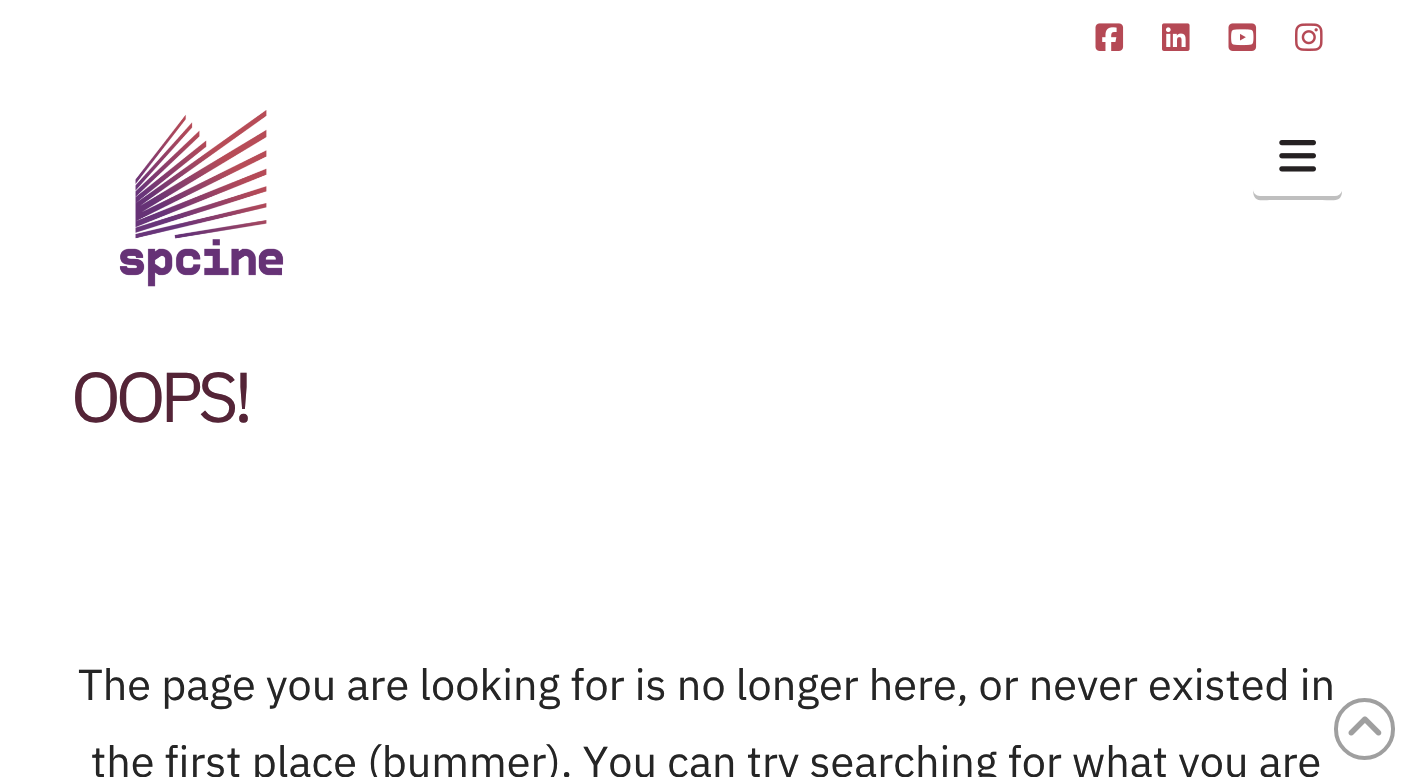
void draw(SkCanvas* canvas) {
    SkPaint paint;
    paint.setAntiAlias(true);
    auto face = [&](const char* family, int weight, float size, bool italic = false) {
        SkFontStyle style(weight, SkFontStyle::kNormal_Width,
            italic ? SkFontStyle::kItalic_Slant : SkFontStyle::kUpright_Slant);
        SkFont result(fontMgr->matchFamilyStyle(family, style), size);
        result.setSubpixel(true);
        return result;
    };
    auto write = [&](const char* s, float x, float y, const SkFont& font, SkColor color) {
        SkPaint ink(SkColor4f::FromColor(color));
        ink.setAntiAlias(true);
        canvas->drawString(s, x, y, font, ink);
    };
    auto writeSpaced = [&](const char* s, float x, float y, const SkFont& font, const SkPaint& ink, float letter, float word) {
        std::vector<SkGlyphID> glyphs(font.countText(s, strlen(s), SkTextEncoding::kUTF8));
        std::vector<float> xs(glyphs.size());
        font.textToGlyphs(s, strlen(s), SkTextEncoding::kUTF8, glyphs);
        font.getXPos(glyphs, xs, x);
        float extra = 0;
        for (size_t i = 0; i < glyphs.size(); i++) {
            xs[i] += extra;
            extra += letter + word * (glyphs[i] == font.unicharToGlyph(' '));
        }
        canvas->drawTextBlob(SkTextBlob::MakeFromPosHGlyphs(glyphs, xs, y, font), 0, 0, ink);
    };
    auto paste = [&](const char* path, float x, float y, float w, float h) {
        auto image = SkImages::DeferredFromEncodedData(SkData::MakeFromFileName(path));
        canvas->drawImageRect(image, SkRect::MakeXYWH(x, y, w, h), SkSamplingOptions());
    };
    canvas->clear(SK_ColorWHITE);
    paste("pic1.png", 1095, 23, 29, 28);
    paste("pic2.png", 1162, 23, 28, 28);
    paste("pic3.png", 1228, 23, 29, 28);
    paste("pic4.png", 1295, 23, 28, 28);
    paste("pic5.png", 119, 110, 165, 177);
    paint.setColor(SkColorSetRGB(191, 191, 191));
    canvas->drawPath(SkPathBuilder().moveTo(1253, 189).cubicTo(1253, 203, 1260, 200, 1272, 200).lineTo(1322, 200).cubicTo(1332, 200, 1342, 203, 1342, 191).cubicTo(1341, 194, 1338, 196, 1335, 196).lineTo(1260, 196).cubicTo(1256, 196, 1253, 193, 1253, 189).close().detach(), paint);
    paste("pic6.png", 1279, 140, 37, 32);
    auto kFont1 = face("IBM Plex Sans", 400, 70.5f);
    paint.setColor(SkColorSetRGB(84, 36, 55));
    writeSpaced("OOPS!", 71, 422, kFont1, paint, -5.25f, 0);
    auto kFont2 = face("IBM Plex Sans", 400, 43.2f);
    write("The page you are looking for is no longer here, or never existed in", 78, 700, kFont2, SkColorSetRGB(37, 37, 37));
    write("the first place (bummer). You can try searching for what you are", 91, 777, kFont2, SkColorSetRGB(37, 37, 37));
    paint.setStyle(SkPaint::kStroke_Style);
    paint.setStrokeWidth(4);
    paint.setColor(SkColorSetRGB(159, 159, 159));
    canvas->drawRoundRect(SkRect::MakeXYWH(1336, 700, 57, 58), 28.5f, 28.5f, paint);
    paste("pic7.png", 1348, 716, 34, 20);
}
